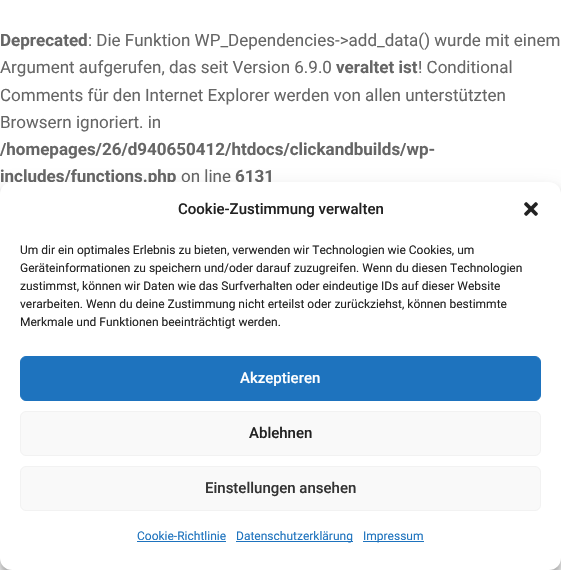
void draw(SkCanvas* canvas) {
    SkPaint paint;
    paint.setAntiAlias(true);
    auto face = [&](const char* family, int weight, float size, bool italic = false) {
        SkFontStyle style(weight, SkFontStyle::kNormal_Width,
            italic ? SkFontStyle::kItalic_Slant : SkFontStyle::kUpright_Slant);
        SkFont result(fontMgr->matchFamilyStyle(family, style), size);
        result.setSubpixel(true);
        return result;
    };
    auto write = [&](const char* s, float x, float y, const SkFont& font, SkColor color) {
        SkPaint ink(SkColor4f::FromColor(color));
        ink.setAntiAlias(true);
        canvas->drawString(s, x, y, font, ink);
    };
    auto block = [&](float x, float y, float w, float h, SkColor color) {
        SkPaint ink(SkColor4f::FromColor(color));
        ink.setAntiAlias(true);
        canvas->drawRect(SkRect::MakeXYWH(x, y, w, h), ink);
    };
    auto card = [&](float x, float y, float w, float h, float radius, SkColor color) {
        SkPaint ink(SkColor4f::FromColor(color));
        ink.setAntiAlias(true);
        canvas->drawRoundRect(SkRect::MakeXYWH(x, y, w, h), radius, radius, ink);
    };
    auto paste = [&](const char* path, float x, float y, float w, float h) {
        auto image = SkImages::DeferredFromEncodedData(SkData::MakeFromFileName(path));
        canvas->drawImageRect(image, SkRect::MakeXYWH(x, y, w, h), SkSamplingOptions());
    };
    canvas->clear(SK_ColorWHITE);
    auto kFont1 = face("Roboto", 700, 17);
    write("Deprecated", 0, 46, kFont1, SkColorSetRGB(102, 102, 102));
    auto kFont2 = face("Roboto", 400, 17);
    write(": Die Funktion WP_Dependencies->add_data() wurde mit einem", 88, 46, kFont2, SkColorSetRGB(102, 102, 102));
    write("Argument aufgerufen, das seit Version 6.9.0", 0, 73, kFont2, SkColorSetRGB(102, 102, 102));
    write("veraltet ist", 336, 73, kFont1, SkColorSetRGB(102, 102, 102));
    write("! Conditional", 418, 73, kFont2, SkColorSetRGB(102, 102, 102));
    write("Comments für den Internet Explorer werden von allen unterstützten", 0, 101, kFont2, SkColorSetRGB(102, 102, 102));
    write("Browsern ignoriert. in", 0, 128, kFont2, SkColorSetRGB(102, 102, 102));
    write("/homepages/26/d940650412/htdocs/clickandbuilds/wp-", 0, 155, kFont1, SkColorSetRGB(102, 102, 102));
    write("includes/functions.php", 0, 182, kFont1, SkColorSetRGB(102, 102, 102));
    write("on line", 181, 182, kFont2, SkColorSetRGB(102, 102, 102));
    write("6131", 235, 182, kFont1, SkColorSetRGB(102, 102, 102));
    paint.setColor(SkColorSetARGB(59, 0, 0, 0));
    paint.setMaskFilter(SkMaskFilter::MakeBlur(kNormal_SkBlurStyle, 3));
    canvas->drawRoundRect(SkRect::MakeXYWH(0, 188, 561, 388), 12, 12, paint);
    paint.setMaskFilter(nullptr);
    paint.setColor(SkColorSetARGB(48, 0, 0, 0));
    paint.setMaskFilter(SkMaskFilter::MakeBlur(kNormal_SkBlurStyle, 10));
    canvas->drawRoundRect(SkRect::MakeXYWH(0, 192, 561, 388), 12, 12, paint);
    paint.setMaskFilter(nullptr);
    card(0, 182, 561, 388, 12, SK_ColorWHITE);
    auto kFont3 = face("Roboto", 500, 15);
    write("Cookie-Zustimmung verwalten", 178, 214, kFont3, SkColorSetRGB(34, 34, 34));
    paste("pic1.png", 524, 202, 14, 14);
    auto kFont4 = face("Roboto", 400, 12);
    write("Um dir ein optimales Erlebnis zu bieten, verwenden wir Technologien wie Cookies, um", 20, 254, kFont4, SkColorSetRGB(34, 34, 34));
    write("Geräteinformationen zu speichern und/oder darauf zuzugreifen. Wenn du diesen Technologien", 20, 272, kFont4, SkColorSetRGB(34, 34, 34));
    write("zustimmst, können wir Daten wie das Surfverhalten oder eindeutige IDs auf dieser Website", 20, 290, kFont4, SkColorSetRGB(34, 34, 34));
    write("verarbeiten. Wenn du deine Zustimmung nicht erteilst oder zurückziehst, können bestimmte", 20, 308, kFont4, SkColorSetRGB(34, 34, 34));
    write("Merkmale und Funktionen beeinträchtigt werden.", 20, 326, kFont4, SkColorSetRGB(34, 34, 34));
    paint.setColor(SkColorSetRGB(30, 115, 190));
    canvas->drawRoundRect(SkRect::MakeXYWH(20.5f, 356.5f, 520, 44), 5.5f, 5.5f, paint);
    paint.setStyle(SkPaint::kStroke_Style);
    paint.setStrokeWidth(1);
    canvas->drawRoundRect(SkRect::MakeXYWH(20.5f, 356.5f, 520, 44), 5.5f, 5.5f, paint);
    write("Akzeptieren", 240, 383, kFont3, SK_ColorWHITE);
    paint.setStyle(SkPaint::kFill_Style);
    paint.setColor(SkColorSetRGB(249, 249, 249));
    canvas->drawRoundRect(SkRect::MakeXYWH(20.5f, 411.5f, 520, 44), 5.5f, 5.5f, paint);
    paint.setStyle(SkPaint::kStroke_Style);
    paint.setColor(SkColorSetRGB(242, 242, 242));
    canvas->drawRoundRect(SkRect::MakeXYWH(20.5f, 411.5f, 520, 44), 5.5f, 5.5f, paint);
    write("Ablehnen", 249, 438, kFont3, SkColorSetRGB(34, 34, 34));
    paint.setStyle(SkPaint::kFill_Style);
    paint.setColor(SkColorSetRGB(249, 249, 249));
    canvas->drawRoundRect(SkRect::MakeXYWH(20.5f, 466.5f, 520, 44), 5.5f, 5.5f, paint);
    paint.setStyle(SkPaint::kStroke_Style);
    paint.setColor(SkColorSetRGB(242, 242, 242));
    canvas->drawRoundRect(SkRect::MakeXYWH(20.5f, 466.5f, 520, 44), 5.5f, 5.5f, paint);
    write("Einstellungen ansehen", 205, 493, kFont3, SkColorSetRGB(51, 51, 51));
    write("Cookie-Richtlinie", 137, 540, kFont4, SkColorSetRGB(30, 115, 190));
    block(137, 541, 89, 1, SkColorSetRGB(30, 115, 190));
    block(236, 541, 117, 1, SkColorSetRGB(30, 115, 190));
    write("Datenschutzerklärung", 236, 540, kFont4, SkColorSetRGB(30, 115, 190));
    block(363, 541, 61, 1, SkColorSetRGB(30, 115, 190));
    write("Impressum", 363, 540, kFont4, SkColorSetRGB(30, 115, 190));
}
